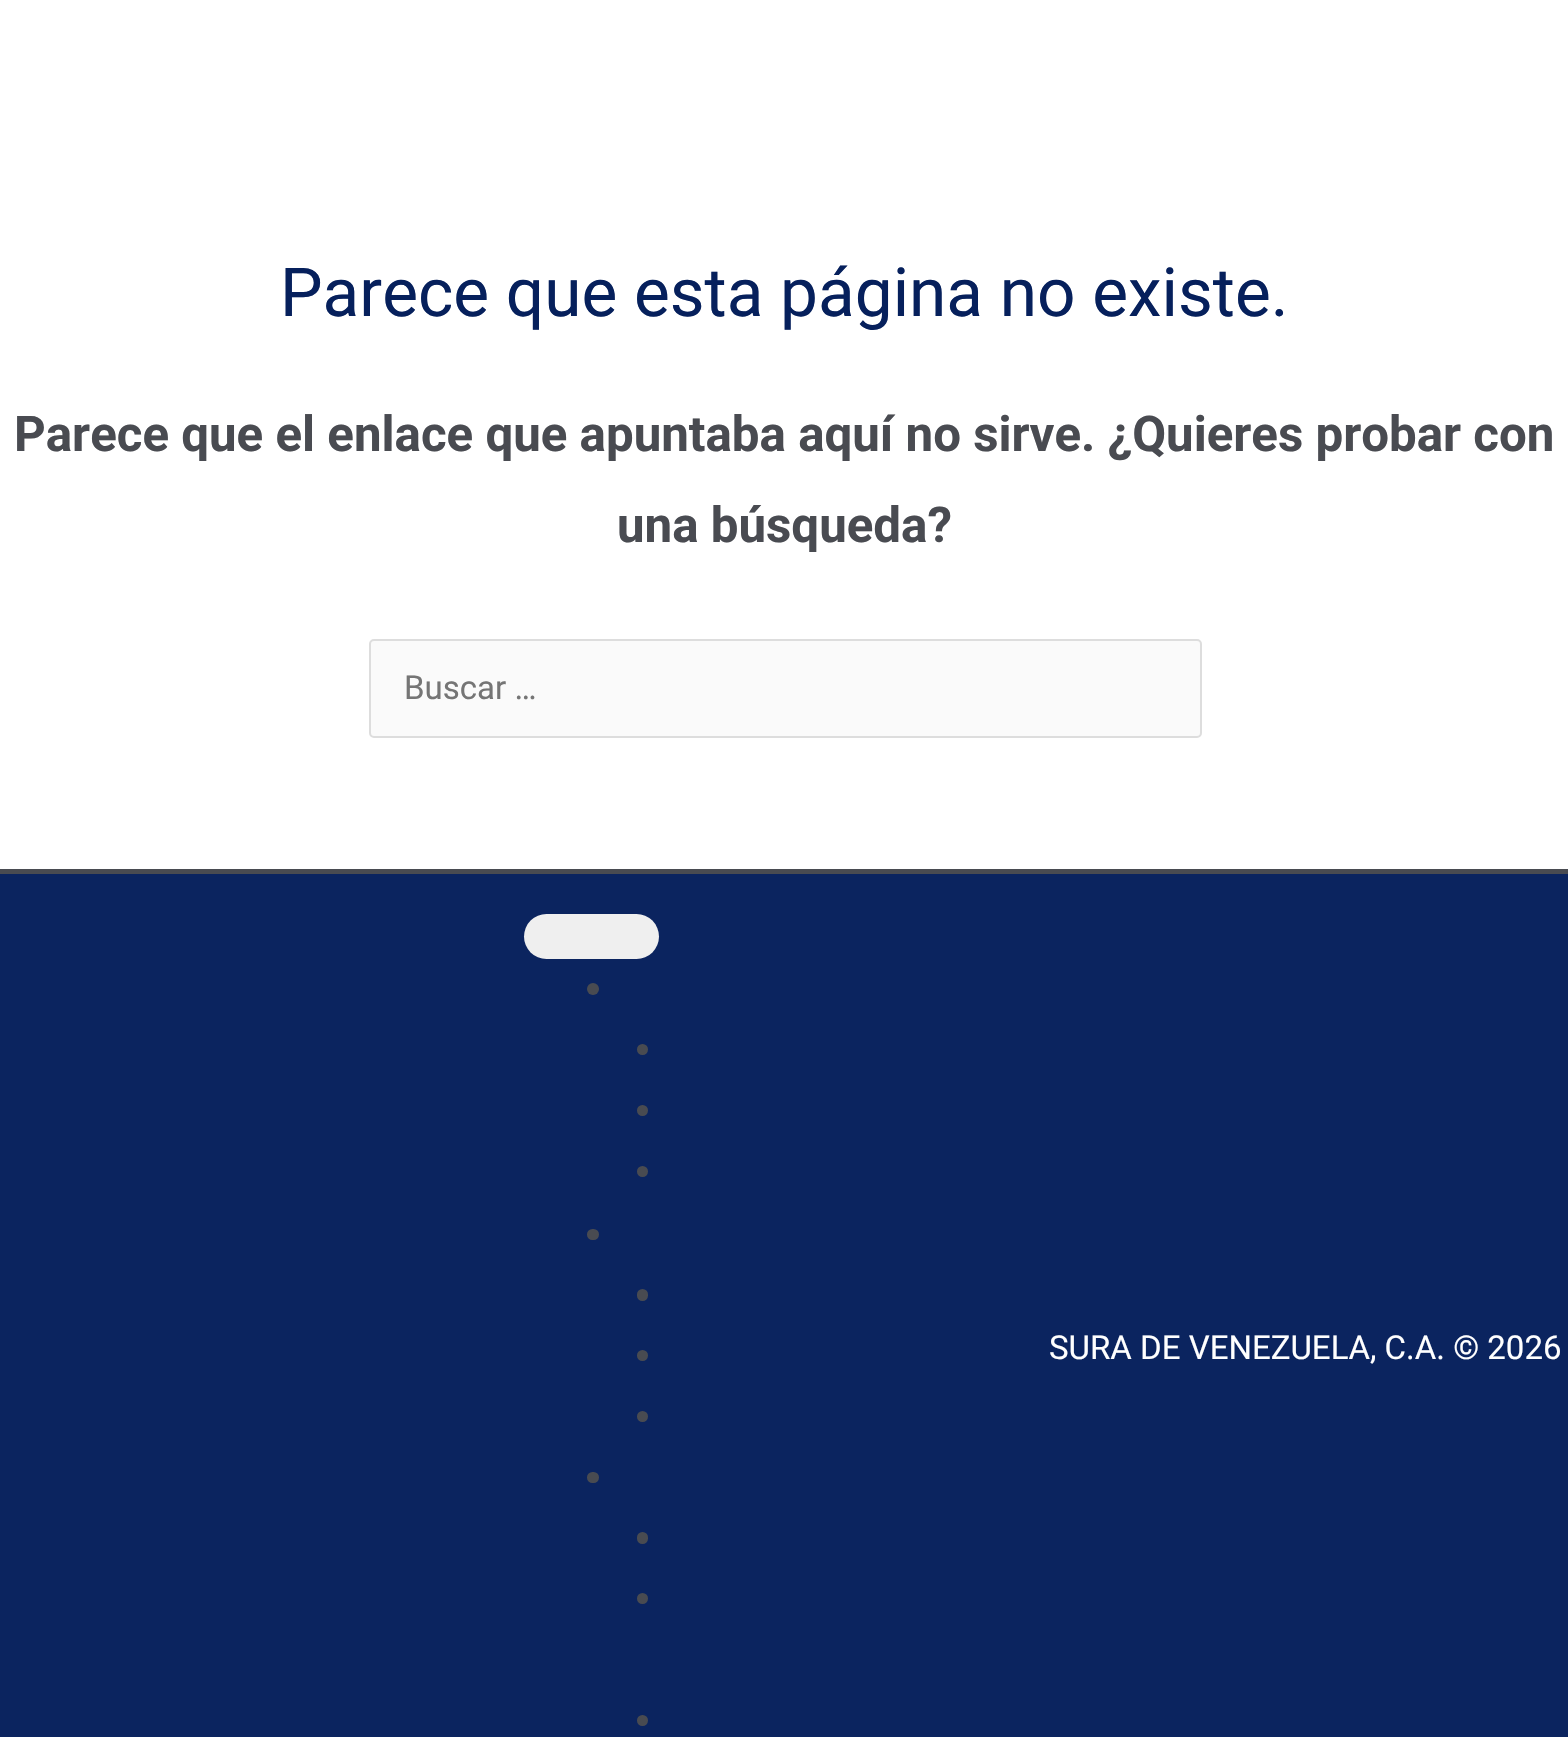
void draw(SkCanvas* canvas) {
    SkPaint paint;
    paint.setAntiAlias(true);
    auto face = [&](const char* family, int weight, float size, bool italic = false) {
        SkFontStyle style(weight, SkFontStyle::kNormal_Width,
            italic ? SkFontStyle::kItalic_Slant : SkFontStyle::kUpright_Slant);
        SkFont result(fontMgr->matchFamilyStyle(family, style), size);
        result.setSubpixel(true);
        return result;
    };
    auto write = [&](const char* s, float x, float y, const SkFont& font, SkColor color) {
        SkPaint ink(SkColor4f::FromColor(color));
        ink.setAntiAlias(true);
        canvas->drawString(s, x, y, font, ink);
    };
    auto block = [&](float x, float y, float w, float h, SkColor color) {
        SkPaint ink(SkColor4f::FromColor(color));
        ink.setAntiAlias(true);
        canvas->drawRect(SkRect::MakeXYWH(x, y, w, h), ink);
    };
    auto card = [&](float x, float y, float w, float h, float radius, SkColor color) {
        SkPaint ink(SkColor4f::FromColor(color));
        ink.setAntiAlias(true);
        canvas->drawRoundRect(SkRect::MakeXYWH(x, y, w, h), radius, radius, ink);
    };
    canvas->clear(SK_ColorWHITE);
    auto kFont1 = face("Roboto", 400, 67.5f);
    write("Parece que esta página no existe.", 280, 316, kFont1, SkColorSetRGB(6, 32, 92));
    auto kFont2 = face("Roboto", 700, 49.25f);
    write("Parece que el enlace que apuntaba aquí no sirve. ¿Quieres probar con", 14, 451, kFont2, SkColorSetRGB(73, 75, 81));
    write("una búsqueda?", 617, 542, kFont2, SkColorSetRGB(73, 75, 81));
    paint.setColor(SkColorSetRGB(250, 250, 250));
    canvas->drawRoundRect(SkRect::MakeXYWH(370, 640, 831, 97), 4, 4, paint);
    paint.setStyle(SkPaint::kStroke_Style);
    paint.setStrokeWidth(2);
    paint.setColor(SkColorSetRGB(221, 221, 221));
    canvas->drawRoundRect(SkRect::MakeXYWH(370, 640, 831, 97), 4, 4, paint);
    auto kFont3 = face("Roboto", 400, 33);
    write("Buscar …", 404, 699, kFont3, SkColorSetRGB(117, 117, 117));
    block(0, 874, 1568, 863, SkColorSetRGB(11, 36, 95));
    block(0, 869, 1568, 5, SkColorSetRGB(73, 75, 81));
    card(524, 914, 135, 45, 22.5f, SkColorSetRGB(239, 239, 239));
    paint.setStyle(SkPaint::kFill_Style);
    paint.setColor(SkColorSetRGB(73, 75, 81));
    canvas->drawCircle(593, 989, 6, paint);
    canvas->drawCircle(642.5f, 1049.5f, 5.5f, paint);
    canvas->drawCircle(642.5f, 1110.5f, 5.5f, paint);
    canvas->drawCircle(642.5f, 1171.5f, 5.5f, paint);
    card(587, 1229, 12, 11, 5.5f, SkColorSetRGB(73, 75, 81));
    card(637, 1289, 11, 12, 5.5f, SkColorSetRGB(73, 75, 81));
    canvas->drawCircle(642.5f, 1355.5f, 5.5f, paint);
    canvas->drawCircle(642.5f, 1416.5f, 5.5f, paint);
    card(587, 1472, 12, 11, 5.5f, SkColorSetRGB(73, 75, 81));
    card(637, 1532, 11, 12, 5.5f, SkColorSetRGB(73, 75, 81));
    canvas->drawCircle(642.5f, 1598.5f, 5.5f, paint);
    canvas->drawCircle(642.5f, 1720.5f, 5.5f, paint);
    write("SURA DE VENEZUELA, C.A. © 2026", 1049, 1359, kFont3, SK_ColorWHITE);
}
